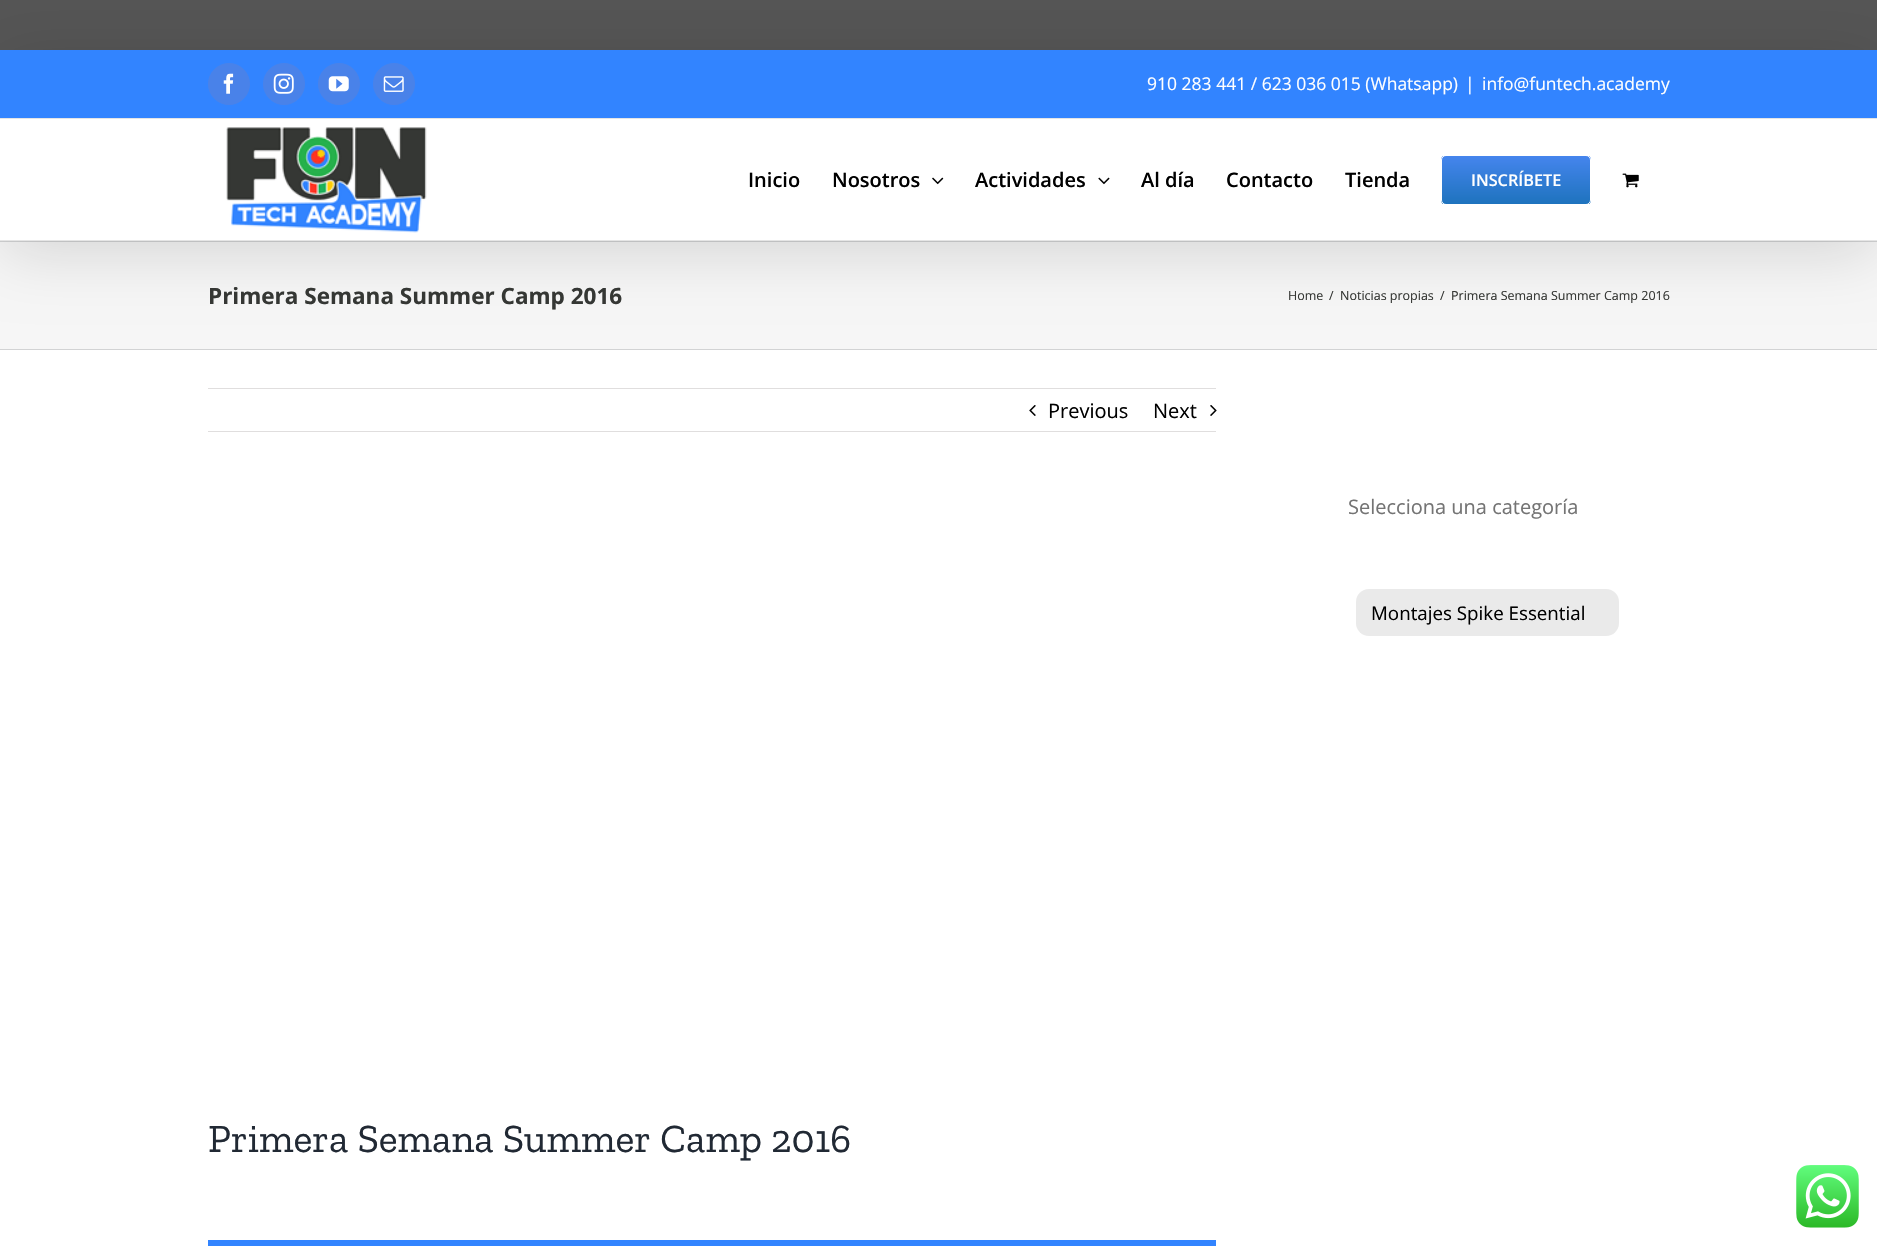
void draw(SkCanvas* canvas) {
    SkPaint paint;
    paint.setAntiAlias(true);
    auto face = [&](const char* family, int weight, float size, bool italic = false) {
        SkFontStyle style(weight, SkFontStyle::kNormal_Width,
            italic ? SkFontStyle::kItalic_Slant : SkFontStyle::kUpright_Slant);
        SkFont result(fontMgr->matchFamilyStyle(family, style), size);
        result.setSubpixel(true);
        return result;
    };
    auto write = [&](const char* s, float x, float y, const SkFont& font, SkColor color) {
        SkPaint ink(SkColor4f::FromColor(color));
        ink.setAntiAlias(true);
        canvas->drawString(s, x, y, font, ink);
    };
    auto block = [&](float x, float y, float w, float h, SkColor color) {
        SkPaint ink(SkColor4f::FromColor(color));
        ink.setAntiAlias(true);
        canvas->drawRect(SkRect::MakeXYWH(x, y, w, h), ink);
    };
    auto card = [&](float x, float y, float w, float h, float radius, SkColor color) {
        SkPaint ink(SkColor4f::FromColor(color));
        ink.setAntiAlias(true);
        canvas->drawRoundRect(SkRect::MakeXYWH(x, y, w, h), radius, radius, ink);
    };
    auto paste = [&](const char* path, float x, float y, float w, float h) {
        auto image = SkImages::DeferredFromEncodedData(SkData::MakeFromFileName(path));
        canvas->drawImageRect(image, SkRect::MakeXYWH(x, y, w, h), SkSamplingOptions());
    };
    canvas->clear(SkColorSetRGB(85, 85, 85));
    block(0, 119, 1877, 121, SK_ColorWHITE);
    block(0, 242, 1877, 107, SkColorSetRGB(246, 246, 246));
    block(0, 241, 1877, 1, SkColorSetRGB(210, 211, 212));
    canvas->save();
    canvas->clipPath(SkPathBuilder(SkPathFillType::kEvenOdd).moveTo(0, 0).lineTo(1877, 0).lineTo(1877, 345).lineTo(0, 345).close().moveTo(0, 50).lineTo(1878, 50).lineTo(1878, 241).lineTo(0, 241).close().detach(), true);
    paint.setColor(SkColorSetARGB(36, 0, 0, 0));
    paint.setMaskFilter(SkMaskFilter::MakeBlur(kNormal_SkBlurStyle, 31));
    canvas->drawRect(SkRect::MakeXYWH(3, 65, 1872, 186), paint);
    paint.setMaskFilter(nullptr);
    canvas->restore();
    block(0, 50, 1877, 68, SkColorSetRGB(50, 132, 255));
    block(0, 118, 1877, 1, SkColorSetRGB(229, 229, 229));
    paint.setColor(SkColorSetRGB(73, 130, 233));
    canvas->drawCircle(229, 84, 20.5f, paint);
    paint.setStyle(SkPaint::kStroke_Style);
    paint.setStrokeWidth(1);
    canvas->drawCircle(229, 84, 20.5f, paint);
    paste("pic1.png", 223, 73, 11, 21);
    paint.setStyle(SkPaint::kFill_Style);
    canvas->drawCircle(284, 84, 20.5f, paint);
    paint.setStyle(SkPaint::kStroke_Style);
    canvas->drawCircle(284, 84, 20.5f, paint);
    paste("pic2.png", 273, 73, 21, 21);
    paint.setStyle(SkPaint::kFill_Style);
    canvas->drawCircle(339, 84, 20.5f, paint);
    paint.setStyle(SkPaint::kStroke_Style);
    canvas->drawCircle(339, 84, 20.5f, paint);
    paste("pic3.png", 328, 76, 21, 16);
    paint.setStyle(SkPaint::kFill_Style);
    canvas->drawCircle(394, 84, 20.5f, paint);
    paint.setStyle(SkPaint::kStroke_Style);
    canvas->drawCircle(394, 84, 20.5f, paint);
    paste("pic4.png", 383, 76, 21, 16);
    auto kFont1 = face("Open Sans", 400, 17.5f);
    write("910 283 441 / 623 036 015 (Whatsapp)", 1147, 90, kFont1, SK_ColorWHITE);
    write("|", 1465, 90, kFont1, SK_ColorWHITE);
    write("info@funtech.academy", 1482, 90, kFont1, SK_ColorWHITE);
    block(0, 240, 1877, 1, SkColorSetRGB(229, 229, 229));
    paste("pic5.png", 226, 127, 201, 106);
    auto kFont2 = face("Open Sans", 600, 20);
    write("Inicio", 748, 187, kFont2, SK_ColorBLACK);
    write("Nosotros", 832, 187, kFont2, SK_ColorBLACK);
    paste("pic6.png", 932, 177, 12, 8);
    write("Actividades", 975, 187, kFont2, SK_ColorBLACK);
    paste("pic7.png", 1098, 177, 12, 8);
    write("Al día", 1141, 187, kFont2, SK_ColorBLACK);
    write("Contacto", 1226, 187, kFont2, SK_ColorBLACK);
    write("Tienda", 1345, 187, kFont2, SK_ColorBLACK);
    canvas->save();
    canvas->clipPath(SkPathBuilder().moveTo(1446, 155).lineTo(1586, 155).cubicTo(1589, 155, 1591, 157, 1591, 160).lineTo(1591, 200).cubicTo(1591, 203, 1589, 205, 1586, 205).lineTo(1446, 205).cubicTo(1443, 205, 1441, 203, 1441, 200).lineTo(1441, 160).cubicTo(1441, 157, 1443, 155, 1446, 155).close().detach(), true);
    paint.setStyle(SkPaint::kFill_Style);
    {
        const SkColor colors[] = {SkColorSetRGB(30, 115, 190), SkColorSetRGB(69, 133, 237)};
        const float stops[] = {0, 1};
        const SkPoint ends[] = {{1516, 204}, {1516, 156}};
        paint.setShader(SkGradientShader::MakeLinear(ends, colors, stops, 2, SkTileMode::kClamp));
        paint.setAlpha(255);
    }
    canvas->drawRect(SkRect::MakeXYWH(1441, 156, 150, 48), paint);
    canvas->restore();
    paint.setStyle(SkPaint::kStroke_Style);
    paint.setShader(nullptr);
    paint.setColor(SK_ColorWHITE);
    canvas->drawRoundRect(SkRect::MakeXYWH(1441.5f, 155.5f, 149, 49), 4.5f, 4.5f, paint);
    auto kFont3 = face("Open Sans", 600, 16.25f);
    write("INSCRÍBETE", 1471, 186, kFont3, SK_ColorWHITE);
    paste("pic8.png", 1622, 173, 17, 15);
    block(0, 349, 1877, 1, SkColorSetRGB(210, 211, 212));
    auto kFont4 = face("Open Sans", 700, 22.5f);
    write("Primera Semana Summer Camp 2016", 208, 304, kFont4, SkColorSetRGB(53, 55, 52));
    auto kFont5 = face("Open Sans", 400, 12.5f);
    write("Home", 1288, 300, kFont5, SkColorSetRGB(53, 55, 52));
    write("/", 1329, 300, kFont5, SkColorSetRGB(53, 55, 52));
    write("Noticias propias", 1340, 300, kFont5, SkColorSetRGB(53, 55, 52));
    write("/", 1440, 300, kFont5, SkColorSetRGB(53, 55, 52));
    write("Primera Semana Summer Camp 2016", 1451, 300, kFont5, SkColorSetRGB(53, 55, 52));
    block(0, 350, 1877, 896, SK_ColorWHITE);
    block(208, 388, 1008, 1, SkColorSetRGB(224, 222, 222));
    block(208, 431, 1008, 1, SkColorSetRGB(224, 222, 222));
    paste("pic9.png", 1029, 405, 7, 11);
    auto kFont6 = face("Open Sans", 400, 20);
    write("Previous", 1048, 418, kFont6, SK_ColorBLACK);
    write("Next", 1153, 418, kFont6, SK_ColorBLACK);
    paste("pic10.png", 1210, 405, 7, 11);
    auto kFont7 = face("Zilla Slab", 400, 40);
    write("Primera Semana Summer Camp 2016", 208, 1152, kFont7, SkColorSetRGB(33, 41, 52));
    block(208, 1240, 1008, 6, SkColorSetRGB(50, 132, 255));
    write("Selecciona una categoría", 1348, 514, kFont6, SkColorSetRGB(116, 116, 116));
    card(1356, 589, 263, 47, 13, SkColorSetRGB(234, 234, 234));
    auto kFont8 = face("Open Sans", 400, 18.75f);
    write("Montajes Spike Essential", 1371, 620, kFont8, SK_ColorBLACK);
    paste("pic11.png", 1796, 1165, 63, 63);
}
